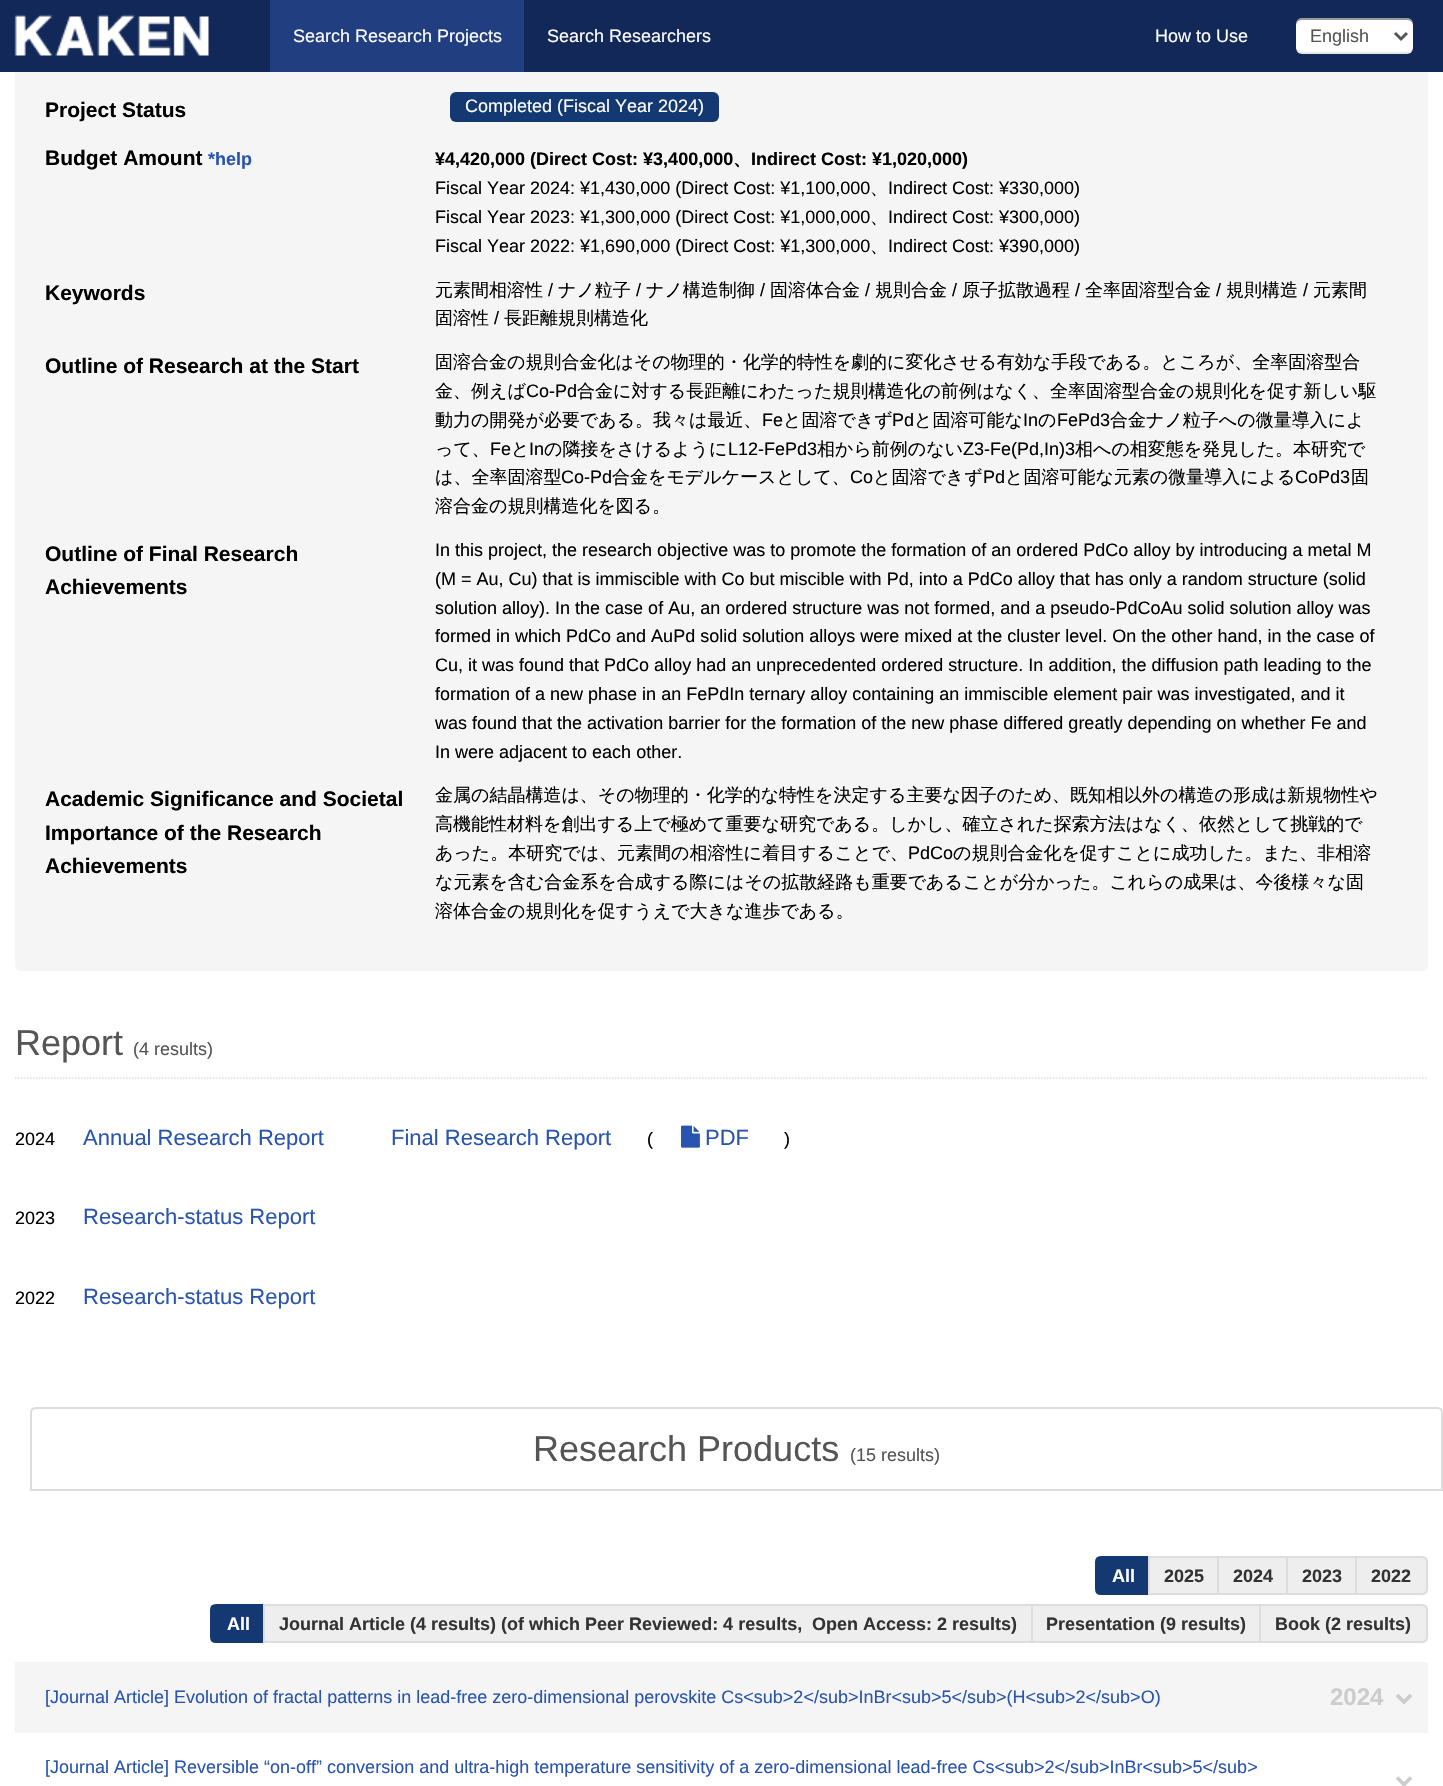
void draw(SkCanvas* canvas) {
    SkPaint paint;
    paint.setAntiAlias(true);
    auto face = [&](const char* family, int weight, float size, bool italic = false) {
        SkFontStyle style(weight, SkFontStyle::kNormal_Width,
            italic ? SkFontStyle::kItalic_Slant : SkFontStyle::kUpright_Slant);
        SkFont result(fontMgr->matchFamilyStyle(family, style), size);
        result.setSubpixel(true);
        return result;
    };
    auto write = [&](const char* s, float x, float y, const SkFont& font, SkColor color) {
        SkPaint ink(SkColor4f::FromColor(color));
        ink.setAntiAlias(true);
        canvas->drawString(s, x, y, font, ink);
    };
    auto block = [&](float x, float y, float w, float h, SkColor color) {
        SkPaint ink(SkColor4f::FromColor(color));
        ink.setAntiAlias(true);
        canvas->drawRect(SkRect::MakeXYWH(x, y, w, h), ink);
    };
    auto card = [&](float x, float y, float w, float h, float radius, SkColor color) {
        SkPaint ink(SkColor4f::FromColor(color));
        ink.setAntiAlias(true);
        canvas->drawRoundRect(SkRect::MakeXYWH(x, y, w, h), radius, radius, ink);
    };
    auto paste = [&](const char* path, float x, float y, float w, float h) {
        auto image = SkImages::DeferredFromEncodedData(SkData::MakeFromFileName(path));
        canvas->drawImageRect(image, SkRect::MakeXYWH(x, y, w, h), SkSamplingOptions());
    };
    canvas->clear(SK_ColorWHITE);
    card(15, -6, 1413, 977, 6, SkColorSetRGB(245, 245, 245));
    block(0, 0, 1443, 72, SkColorSetRGB(18, 40, 88));
    paste("pic1.png", 14, 14, 195, 42);
    block(270, 0, 254, 72, SkColorSetRGB(32, 62, 128));
    auto kFont1 = face("Liberation Sans", 400, 18);
    write("Search Research Projects", 293, 42, kFont1, SK_ColorWHITE);
    write("Search Researchers", 547, 42, kFont1, SK_ColorWHITE);
    write("How to Use", 1155, 42, kFont1, SK_ColorWHITE);
    card(1296, 18, 117, 36, 6, SK_ColorWHITE);
    paint.setColor(SkColorSetARGB(26, 0, 0, 0));
    canvas->drawPath(SkPathBuilder().moveTo(1296, 46).lineTo(1296, 48).cubicTo(1296, 51, 1299, 54, 1302, 54).lineTo(1407, 54).cubicTo(1410, 54, 1413, 51, 1413, 48).lineTo(1413, 46).cubicTo(1413, 50, 1410, 52, 1407, 52).lineTo(1302, 52).cubicTo(1299, 52, 1296, 50, 1296, 46).close().detach(), paint);
    paint.setColor(SkColorSetARGB(102, 0, 0, 0));
    canvas->drawPath(SkPathBuilder().moveTo(1302, 20).lineTo(1407, 20).cubicTo(1410, 20, 1413, 22, 1413, 26).lineTo(1413, 24).cubicTo(1413, 21, 1410, 18, 1407, 18).lineTo(1302, 18).cubicTo(1299, 18, 1296, 21, 1296, 24).lineTo(1296, 26).cubicTo(1296, 22, 1299, 20, 1302, 20).close().detach(), paint);
    paint.setStyle(SkPaint::kStroke_Style);
    paint.setStrokeWidth(3);
    paint.setColor(SkColorSetRGB(85, 85, 85));
    canvas->drawPath(SkPathBuilder().moveTo(1395, 33).lineTo(1401, 39).lineTo(1407, 33).detach(), paint);
    write("English", 1310, 42, kFont1, SkColorSetRGB(85, 85, 85));
    auto kFont2 = face("Liberation Sans", 700, 21);
    write("Project Status", 45, 117, kFont2, SK_ColorBLACK);
    card(450, 92, 269, 30, 6, SkColorSetRGB(20, 56, 114));
    write("Completed (Fiscal Year 2024)", 465, 112, kFont1, SK_ColorWHITE);
    write("Budget Amount", 45, 165, kFont2, SK_ColorBLACK);
    auto kFont3 = face("Liberation Sans", 700, 18);
    write("*help", 208, 165, kFont3, SkColorSetRGB(41, 84, 175));
    write("¥4,420,000 (Direct Cost: ¥3,400,000", 435, 165, kFont3, SK_ColorBLACK);
    auto kFont4 = face("WenQuanYi Zen Hei", 700, 18);
    write("、", 733, 165, kFont4, SK_ColorBLACK);
    write("Indirect Cost: ¥1,020,000)", 751, 165, kFont3, SK_ColorBLACK);
    write("Fiscal Year 2024: ¥1,430,000 (Direct Cost: ¥1,100,000", 435, 194, kFont1, SK_ColorBLACK);
    auto kFont5 = face("WenQuanYi Zen Hei", 500, 18);
    write("、", 870, 194, kFont5, SK_ColorBLACK);
    write("Indirect Cost: ¥330,000)", 888, 194, kFont1, SK_ColorBLACK);
    write("Fiscal Year 2023: ¥1,300,000 (Direct Cost: ¥1,000,000", 435, 223, kFont1, SK_ColorBLACK);
    write("、", 870, 223, kFont5, SK_ColorBLACK);
    write("Indirect Cost: ¥300,000)", 888, 223, kFont1, SK_ColorBLACK);
    write("Fiscal Year 2022: ¥1,690,000 (Direct Cost: ¥1,300,000", 435, 252, kFont1, SK_ColorBLACK);
    write("、", 870, 252, kFont5, SK_ColorBLACK);
    write("Indirect Cost: ¥390,000)", 888, 252, kFont1, SK_ColorBLACK);
    write("Keywords", 45, 300, kFont2, SK_ColorBLACK);
    write("元素間相溶性", 435, 296, kFont5, SK_ColorBLACK);
    write("/", 548, 296, kFont1, SK_ColorBLACK);
    write("ナノ粒子", 558, 296, kFont5, SK_ColorBLACK);
    write("/", 636, 296, kFont1, SK_ColorBLACK);
    write("ナノ構造制御", 646, 296, kFont5, SK_ColorBLACK);
    write("/", 760, 296, kFont1, SK_ColorBLACK);
    write("固溶体合金", 770, 296, kFont5, SK_ColorBLACK);
    write("/", 865, 296, kFont1, SK_ColorBLACK);
    write("規則合金", 875, 296, kFont5, SK_ColorBLACK);
    write("/", 952, 296, kFont1, SK_ColorBLACK);
    write("原子拡散過程", 962, 296, kFont5, SK_ColorBLACK);
    write("/", 1075, 296, kFont1, SK_ColorBLACK);
    write("全率固溶型合金", 1085, 296, kFont5, SK_ColorBLACK);
    write("/", 1216, 296, kFont1, SK_ColorBLACK);
    write("規則構造", 1226, 296, kFont5, SK_ColorBLACK);
    write("/", 1303, 296, kFont1, SK_ColorBLACK);
    write("元素間", 1313, 296, kFont5, SK_ColorBLACK);
    write("固溶性", 435, 324, kFont5, SK_ColorBLACK);
    write("/", 494, 324, kFont1, SK_ColorBLACK);
    write("長距離規則構造化", 504, 324, kFont5, SK_ColorBLACK);
    write("Outline of Research at the Start", 45, 373, kFont2, SK_ColorBLACK);
    write("固溶合金の規則合金化はその物理的・化学的特性を劇的に変化させる有効な手段である。ところが、全率固溶型合", 435, 368, kFont5, SK_ColorBLACK);
    write("金、例えば", 435, 397, kFont5, SK_ColorBLACK);
    write("Co-Pd", 526, 397, kFont1, SK_ColorBLACK);
    write("合金に対する長距離にわたった規則構造化の前例はなく、全率固溶型合金の規則化を促す新しい駆", 577, 397, kFont5, SK_ColorBLACK);
    write("動力の開発が必要である。我々は最近、", 435, 426, kFont5, SK_ColorBLACK);
    write("Fe", 762, 426, kFont1, SK_ColorBLACK);
    write("と固溶できず", 783, 426, kFont5, SK_ColorBLACK);
    write("Pd", 892, 426, kFont1, SK_ColorBLACK);
    write("と固溶可能な", 914, 426, kFont5, SK_ColorBLACK);
    write("In", 1023, 426, kFont1, SK_ColorBLACK);
    write("の", 1038, 426, kFont5, SK_ColorBLACK);
    write("FePd3", 1057, 426, kFont1, SK_ColorBLACK);
    write("合金ナノ粒子への微量導入によ", 1110, 426, kFont5, SK_ColorBLACK);
    write("って、", 435, 455, kFont5, SK_ColorBLACK);
    write("Fe", 490, 455, kFont1, SK_ColorBLACK);
    write("と", 511, 455, kFont5, SK_ColorBLACK);
    write("In", 529, 455, kFont1, SK_ColorBLACK);
    write("の隣接をさけるように", 544, 455, kFont5, SK_ColorBLACK);
    write("L12-FePd3", 728, 455, kFont1, SK_ColorBLACK);
    write("相から前例のない", 817, 455, kFont5, SK_ColorBLACK);
    write("Z3-Fe(Pd,In)3", 963, 455, kFont1, SK_ColorBLACK);
    write("相への相変態を発見した。本研究で", 1075, 455, kFont5, SK_ColorBLACK);
    write("は、全率固溶型", 435, 483, kFont5, SK_ColorBLACK);
    write("Co-Pd", 561, 483, kFont1, SK_ColorBLACK);
    write("合金をモデルケースとして、", 612, 483, kFont5, SK_ColorBLACK);
    write("Co", 850, 483, kFont1, SK_ColorBLACK);
    write("と固溶できず", 873, 483, kFont5, SK_ColorBLACK);
    write("Pd", 983, 483, kFont1, SK_ColorBLACK);
    write("と固溶可能な元素の微量導入による", 1005, 483, kFont5, SK_ColorBLACK);
    write("CoPd3", 1295, 483, kFont1, SK_ColorBLACK);
    write("固", 1351, 483, kFont5, SK_ColorBLACK);
    write("溶合金の規則構造化を図る。", 435, 512, kFont5, SK_ColorBLACK);
    write("Outline of Final Research", 45, 561, kFont2, SK_ColorBLACK);
    write("Achievements", 45, 594, kFont2, SK_ColorBLACK);
    write("In this project, the research objective was to promote the formation of an ordered PdCo alloy by introducing a metal M", 435, 556, kFont1, SK_ColorBLACK);
    write("(M = Au, Cu) that is immiscible with Co but miscible with Pd, into a PdCo alloy that has only a random structure (solid", 435, 585, kFont1, SK_ColorBLACK);
    write("solution alloy). In the case of Au, an ordered structure was not formed, and a pseudo-PdCoAu solid solution alloy was", 435, 614, kFont1, SK_ColorBLACK);
    write("formed in which PdCo and AuPd solid solution alloys were mixed at the cluster level. On the other hand, in the case of", 435, 642, kFont1, SK_ColorBLACK);
    write("Cu, it was found that PdCo alloy had an unprecedented ordered structure. In addition, the diffusion path leading to the", 435, 671, kFont1, SK_ColorBLACK);
    write("formation of a new phase in an FePdIn ternary alloy containing an immiscible element pair was investigated, and it", 435, 700, kFont1, SK_ColorBLACK);
    write("was found that the activation barrier for the formation of the new phase differed greatly depending on whether Fe and", 435, 729, kFont1, SK_ColorBLACK);
    write("In were adjacent to each other.", 435, 758, kFont1, SK_ColorBLACK);
    write("Academic Significance and Societal", 45, 806, kFont2, SK_ColorBLACK);
    write("Importance of the Research", 45, 840, kFont2, SK_ColorBLACK);
    write("Achievements", 45, 873, kFont2, SK_ColorBLACK);
    write("金属の結晶構造は、その物理的・化学的な特性を決定する主要な因子のため、既知相以外の構造の形成は新規物性や", 435, 801, kFont5, SK_ColorBLACK);
    write("高機能性材料を創出する上で極めて重要な研究である。しかし、確立された探索方法はなく、依然として挑戦的で", 435, 830, kFont5, SK_ColorBLACK);
    write("あった。本研究では、元素間の相溶性に着目することで、", 435, 859, kFont5, SK_ColorBLACK);
    write("PdCo", 908, 859, kFont1, SK_ColorBLACK);
    write("の規則合金化を促すことに成功した。また、非相溶", 953, 859, kFont5, SK_ColorBLACK);
    write("な元素を含む合金系を合成する際にはその拡散経路も重要であることが分かった。これらの成果は、今後様々な固", 435, 888, kFont5, SK_ColorBLACK);
    write("溶体合金の規則化を促すうえで大きな進歩である。", 435, 917, kFont5, SK_ColorBLACK);
    paint.setStrokeWidth(1.5f);
    paint.setColor(SkColorSetRGB(221, 221, 221));
    paint.setPathEffect(SkDashPathEffect::Make({{1.5f, 1.5f}}, 0));
    canvas->drawPath(SkPathBuilder().moveTo(15, 1078).lineTo(1428, 1078).detach(), paint);
    paint.setPathEffect(nullptr);
    auto kFont6 = face("Liberation Sans", 400, 36);
    write("Report", 15, 1055, kFont6, SkColorSetRGB(85, 85, 85));
    write("(4 results)", 133, 1055, kFont1, SkColorSetRGB(85, 85, 85));
    write("2024", 15, 1145, kFont1, SK_ColorBLACK);
    auto kFont7 = face("Liberation Sans", 400, 22);
    write("Annual Research Report", 83, 1145, kFont7, SkColorSetRGB(41, 84, 175));
    write("Final Research Report", 391, 1145, kFont7, SkColorSetRGB(41, 84, 175));
    write("(", 647, 1145, kFont1, SK_ColorBLACK);
    paste("pic2.png", 681, 1125, 19, 23);
    write("PDF", 705, 1145, kFont7, SkColorSetRGB(41, 84, 175));
    write(")", 784, 1145, kFont1, SK_ColorBLACK);
    write("2023", 15, 1224, kFont1, SK_ColorBLACK);
    write("Research-status Report", 83, 1224, kFont7, SkColorSetRGB(41, 84, 175));
    write("2022", 15, 1304, kFont1, SK_ColorBLACK);
    write("Research-status Report", 83, 1304, kFont7, SkColorSetRGB(41, 84, 175));
    paint.setStrokeWidth(2);
    canvas->drawPath(SkPathBuilder().moveTo(36, 1408).lineTo(1437, 1408).cubicTo(1440, 1408, 1442, 1410, 1442, 1413).lineTo(1442, 1490).lineTo(31, 1490).lineTo(31, 1413).cubicTo(31, 1410, 33, 1408, 36, 1408).close().detach(), paint);
    write("Research Products", 533, 1461, kFont6, SkColorSetRGB(85, 85, 85));
    write("(15 results)", 850, 1461, kFont1, SkColorSetRGB(85, 85, 85));
    paint.setStyle(SkPaint::kFill_Style);
    paint.setColor(SkColorSetRGB(20, 56, 114));
    canvas->drawPath(SkPathBuilder().moveTo(1101, 1557).lineTo(1151, 1557).lineTo(1151, 1594).lineTo(1101, 1594).cubicTo(1098, 1594, 1096, 1592, 1096, 1589).lineTo(1096, 1562).cubicTo(1096, 1559, 1098, 1557, 1101, 1557).close().detach(), paint);
    paint.setStyle(SkPaint::kStroke_Style);
    canvas->drawPath(SkPathBuilder().moveTo(1101, 1557).lineTo(1151, 1557).lineTo(1151, 1594).lineTo(1101, 1594).cubicTo(1098, 1594, 1096, 1592, 1096, 1589).lineTo(1096, 1562).cubicTo(1096, 1559, 1098, 1557, 1101, 1557).close().detach(), paint);
    write("All", 1112, 1582, kFont3, SK_ColorWHITE);
    block(1150, 1558, 67, 35, SkColorSetRGB(238, 238, 238));
    paint.setColor(SkColorSetRGB(221, 221, 221));
    canvas->drawRect(SkRect::MakeXYWH(1149, 1557, 71, 37), paint);
    write("2025", 1164, 1582, kFont3, SkColorSetRGB(51, 51, 51));
    block(1219, 1558, 67, 35, SkColorSetRGB(238, 238, 238));
    canvas->drawRect(SkRect::MakeXYWH(1218, 1557, 71, 37), paint);
    write("2024", 1233, 1582, kFont3, SkColorSetRGB(51, 51, 51));
    block(1288, 1558, 67, 35, SkColorSetRGB(238, 238, 238));
    canvas->drawRect(SkRect::MakeXYWH(1287, 1557, 71, 37), paint);
    write("2023", 1302, 1582, kFont3, SkColorSetRGB(51, 51, 51));
    paint.setStyle(SkPaint::kFill_Style);
    paint.setColor(SkColorSetRGB(238, 238, 238));
    canvas->drawPath(SkPathBuilder().moveTo(1356, 1557).lineTo(1422, 1557).cubicTo(1425, 1557, 1427, 1559, 1427, 1562).lineTo(1427, 1589).cubicTo(1427, 1592, 1425, 1594, 1422, 1594).lineTo(1356, 1594).close().detach(), paint);
    paint.setStyle(SkPaint::kStroke_Style);
    paint.setColor(SkColorSetRGB(221, 221, 221));
    canvas->drawPath(SkPathBuilder().moveTo(1356, 1557).lineTo(1422, 1557).cubicTo(1425, 1557, 1427, 1559, 1427, 1562).lineTo(1427, 1589).cubicTo(1427, 1592, 1425, 1594, 1422, 1594).lineTo(1356, 1594).close().detach(), paint);
    write("2022", 1371, 1582, kFont3, SkColorSetRGB(51, 51, 51));
    paint.setStyle(SkPaint::kFill_Style);
    paint.setColor(SkColorSetRGB(20, 56, 114));
    canvas->drawPath(SkPathBuilder().moveTo(216, 1605).lineTo(266, 1605).lineTo(266, 1642).lineTo(216, 1642).cubicTo(213, 1642, 211, 1640, 211, 1637).lineTo(211, 1610).cubicTo(211, 1607, 213, 1605, 216, 1605).close().detach(), paint);
    paint.setStyle(SkPaint::kStroke_Style);
    canvas->drawPath(SkPathBuilder().moveTo(216, 1605).lineTo(266, 1605).lineTo(266, 1642).lineTo(216, 1642).cubicTo(213, 1642, 211, 1640, 211, 1637).lineTo(211, 1610).cubicTo(211, 1607, 213, 1605, 216, 1605).close().detach(), paint);
    write("All", 227, 1630, kFont3, SK_ColorWHITE);
    block(265, 1606, 766, 35, SkColorSetRGB(238, 238, 238));
    paint.setColor(SkColorSetRGB(221, 221, 221));
    canvas->drawRect(SkRect::MakeXYWH(264, 1605, 775, 37), paint);
    write("Journal Article (4 results) (of which Peer Reviewed: 4 results,", 279, 1630, kFont3, SkColorSetRGB(51, 51, 51));
    write("Open Access: 2 results)", 812, 1630, kFont3, SkColorSetRGB(51, 51, 51));
    block(1033, 1606, 226, 35, SkColorSetRGB(238, 238, 238));
    canvas->drawRect(SkRect::MakeXYWH(1032, 1605, 235, 37), paint);
    write("Presentation (9 results)", 1046, 1630, kFont3, SkColorSetRGB(51, 51, 51));
    paint.setStyle(SkPaint::kFill_Style);
    paint.setColor(SkColorSetRGB(238, 238, 238));
    canvas->drawPath(SkPathBuilder().moveTo(1260, 1605).lineTo(1422, 1605).cubicTo(1425, 1605, 1427, 1607, 1427, 1610).lineTo(1427, 1637).cubicTo(1427, 1640, 1425, 1642, 1422, 1642).lineTo(1260, 1642).close().detach(), paint);
    paint.setStyle(SkPaint::kStroke_Style);
    paint.setColor(SkColorSetRGB(221, 221, 221));
    canvas->drawPath(SkPathBuilder().moveTo(1260, 1605).lineTo(1422, 1605).cubicTo(1425, 1605, 1427, 1607, 1427, 1610).lineTo(1427, 1637).cubicTo(1427, 1640, 1425, 1642, 1422, 1642).lineTo(1260, 1642).close().detach(), paint);
    write("Book (2 results)", 1275, 1630, kFont3, SkColorSetRGB(51, 51, 51));
    block(15, 1662, 1413, 71, SkColorSetRGB(245, 245, 245));
    write("[Journal Article] Evolution of fractal patterns in lead-free zero-dimensional perovskite Cs<sub>2</sub>InBr<sub>5</sub>(H<sub>2</sub>O)", 45, 1703, kFont1, SkColorSetRGB(41, 84, 175));
    auto kFont8 = face("Liberation Sans", 700, 24);
    write("2024", 1330, 1705, kFont8, SkColorSetRGB(204, 204, 204));
    paste("pic3.png", 1396, 1694, 16, 11);
    write("[Journal Article] Reversible “on-off” conversion and ultra-high temperature sensitivity of a zero-dimensional lead-free Cs<sub>2</sub>InBr<sub>5</sub>", 45, 1773, kFont1, SkColorSetRGB(41, 84, 175));
    paste("pic4.png", 1396, 1776, 16, 10);
}
